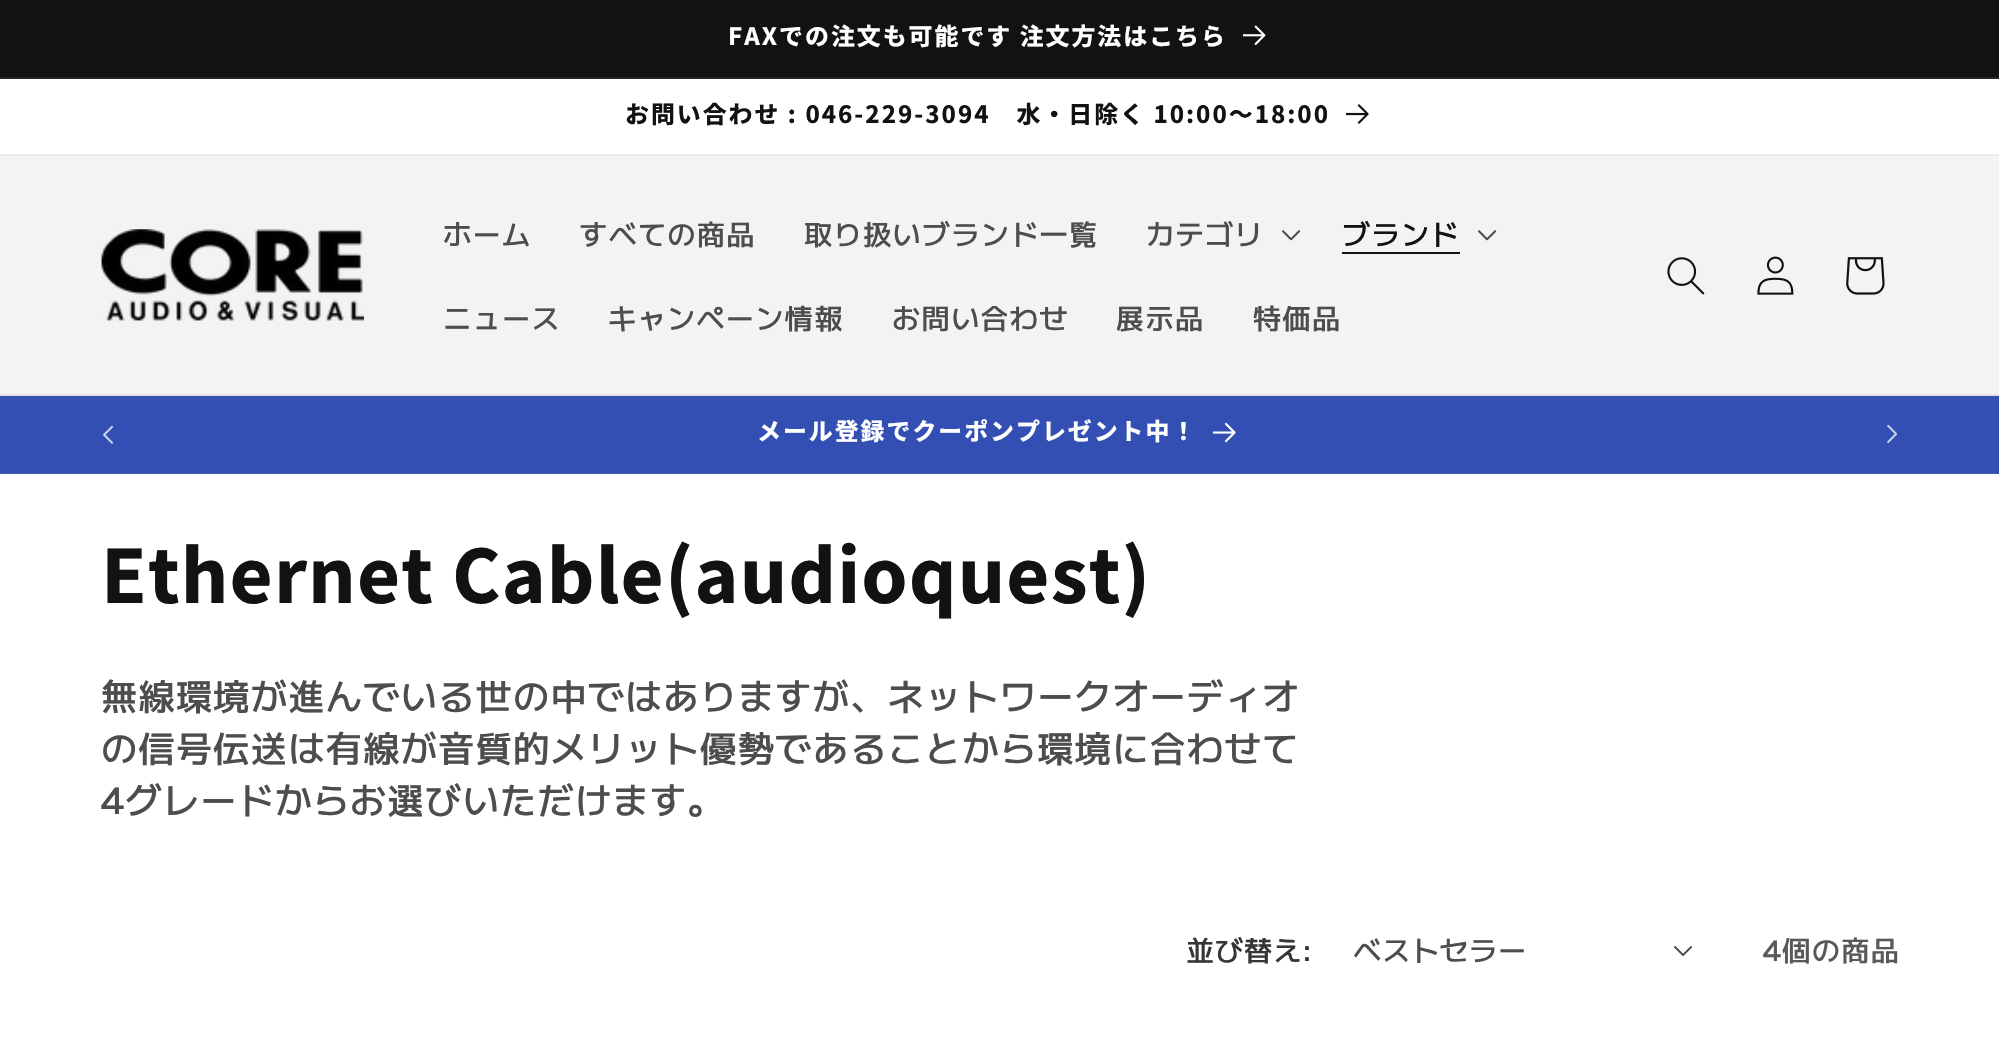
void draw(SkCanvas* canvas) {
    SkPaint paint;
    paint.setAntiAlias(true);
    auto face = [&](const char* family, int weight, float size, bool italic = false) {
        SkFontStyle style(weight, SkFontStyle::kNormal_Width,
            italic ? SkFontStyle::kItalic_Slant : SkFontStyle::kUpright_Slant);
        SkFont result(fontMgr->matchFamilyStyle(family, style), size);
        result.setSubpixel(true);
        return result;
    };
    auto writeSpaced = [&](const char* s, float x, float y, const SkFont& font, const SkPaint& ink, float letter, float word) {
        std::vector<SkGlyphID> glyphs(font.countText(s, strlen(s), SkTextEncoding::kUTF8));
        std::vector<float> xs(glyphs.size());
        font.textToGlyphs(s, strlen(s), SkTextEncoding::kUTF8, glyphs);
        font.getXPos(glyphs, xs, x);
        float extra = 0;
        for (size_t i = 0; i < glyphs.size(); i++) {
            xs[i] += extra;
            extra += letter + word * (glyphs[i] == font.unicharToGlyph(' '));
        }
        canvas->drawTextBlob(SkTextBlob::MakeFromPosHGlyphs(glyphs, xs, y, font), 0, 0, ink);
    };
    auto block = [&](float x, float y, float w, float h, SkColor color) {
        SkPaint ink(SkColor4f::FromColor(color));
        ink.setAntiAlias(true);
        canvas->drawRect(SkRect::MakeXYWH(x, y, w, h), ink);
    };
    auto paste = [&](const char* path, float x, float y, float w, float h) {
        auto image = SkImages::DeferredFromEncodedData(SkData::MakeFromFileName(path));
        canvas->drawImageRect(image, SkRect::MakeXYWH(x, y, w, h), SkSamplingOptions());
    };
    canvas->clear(SK_ColorWHITE);
    block(0, 0, 1999, 77, SkColorSetRGB(18, 18, 18));
    block(0, 77, 1999, 2, SkColorSetRGB(37, 37, 37));
    auto kFont1 = face("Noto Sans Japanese", 800, 23.9f);
    paint.setColor(SK_ColorWHITE);
    writeSpaced("FAXでの注文も可能です 注文方法はこちら", 728, 45, kFont1, paint, 2, 0);
    paste("pic1.png", 1243, 25, 23, 20);
    block(0, 154, 1999, 2, SkColorSetRGB(236, 236, 236));
    paint.setColor(SkColorSetRGB(18, 18, 18));
    writeSpaced("お問い合わせ : 046-229-3094　水・日除く 10:00～18:00", 625, 123, kFont1, paint, 2, 0);
    paste("pic2.png", 1346, 104, 23, 20);
    block(0, 156, 1999, 238, SkColorSetRGB(243, 243, 243));
    block(0, 394, 1999, 2, SkColorSetRGB(225, 225, 225));
    paste("pic3.png", 101, 229, 263, 92);
    auto kFont2 = face("M PLUS 1", 500, 28.25f);
    paint.setColor(SkColorSetRGB(77, 77, 77));
    writeSpaced("ホーム", 443, 245, kFont2, paint, 1.2f, 0);
    writeSpaced("すべての商品", 579, 245, kFont2, paint, 1.2f, 0);
    writeSpaced("取り扱いブランド一覧", 804, 245, kFont2, paint, 1.2f, 0);
    writeSpaced("カテゴリ", 1146, 245, kFont2, paint, 1.2f, 0);
    paste("pic4.png", 1282, 230, 19, 11);
    paint.setColor(SkColorSetRGB(18, 18, 18));
    writeSpaced("ブランド", 1342, 245, kFont2, paint, 1.2f, 0);
    block(1342, 252, 118, 2, SkColorSetRGB(18, 18, 18));
    paste("pic4.png", 1478, 230, 19, 11);
    paint.setColor(SkColorSetRGB(77, 77, 77));
    writeSpaced("ニュース", 443, 329, kFont2, paint, 1.2f, 0);
    writeSpaced("キャンペーン情報", 608, 329, kFont2, paint, 1.2f, 0);
    writeSpaced("お問い合わせ", 892, 329, kFont2, paint, 1.2f, 0);
    writeSpaced("展示品", 1116, 329, kFont2, paint, 1.2f, 0);
    writeSpaced("特価品", 1253, 329, kFont2, paint, 1.2f, 0);
    paste("pic5.png", 1667, 257, 38, 38);
    paste("pic6.png", 1757, 256, 37, 39);
    paste("pic7.png", 1846, 257, 39, 38);
    block(0, 396, 1999, 77, SkColorSetRGB(51, 79, 180));
    block(0, 473, 1999, 1, SkColorSetRGB(67, 93, 186));
    paste("pic8.png", 103, 425, 11, 19);
    paint.setColor(SK_ColorWHITE);
    writeSpaced("メール登録でクーポンプレゼント中！", 757, 440, kFont1, paint, 2, 0);
    paste("pic9.png", 1213, 422, 23, 21);
    paste("pic10.png", 1887, 424, 10, 19);
    auto kFont3 = face("Noto Sans Japanese", 800, 73.5f);
    paint.setColor(SkColorSetRGB(18, 18, 18));
    writeSpaced("Ethernet Cable(audioquest)", 101, 603, kFont3, paint, 1.1f, 0);
    auto kFont4 = face("M PLUS 1", 500, 36.25f);
    paint.setColor(SkColorSetRGB(77, 77, 77));
    writeSpaced("無線環境が進んでいる世の中ではありますが、ネットワークオーディオ", 101, 710, kFont4, paint, 1.2f, 0);
    writeSpaced("の信号伝送は有線が音質的メリット優勢であることから環境に合わせて", 101, 762, kFont4, paint, 1.2f, 0);
    writeSpaced("4グレードからお選びいただけます。", 101, 814, kFont4, paint, 1.2f, 0);
    paint.setColor(SkColorSetRGB(54, 54, 54));
    writeSpaced("並び替え:", 1186, 961, kFont2, paint, 0.75f, 0);
    paint.setColor(SkColorSetRGB(77, 77, 77));
    writeSpaced("ベストセラー", 1353, 961, kFont2, paint, 0.75f, 0);
    paste("pic11.png", 1674, 946, 18, 10);
    paint.setColor(SkColorSetRGB(89, 89, 89));
    writeSpaced("4個の商品", 1763, 961, kFont2, paint, 1.2f, 0);
}
